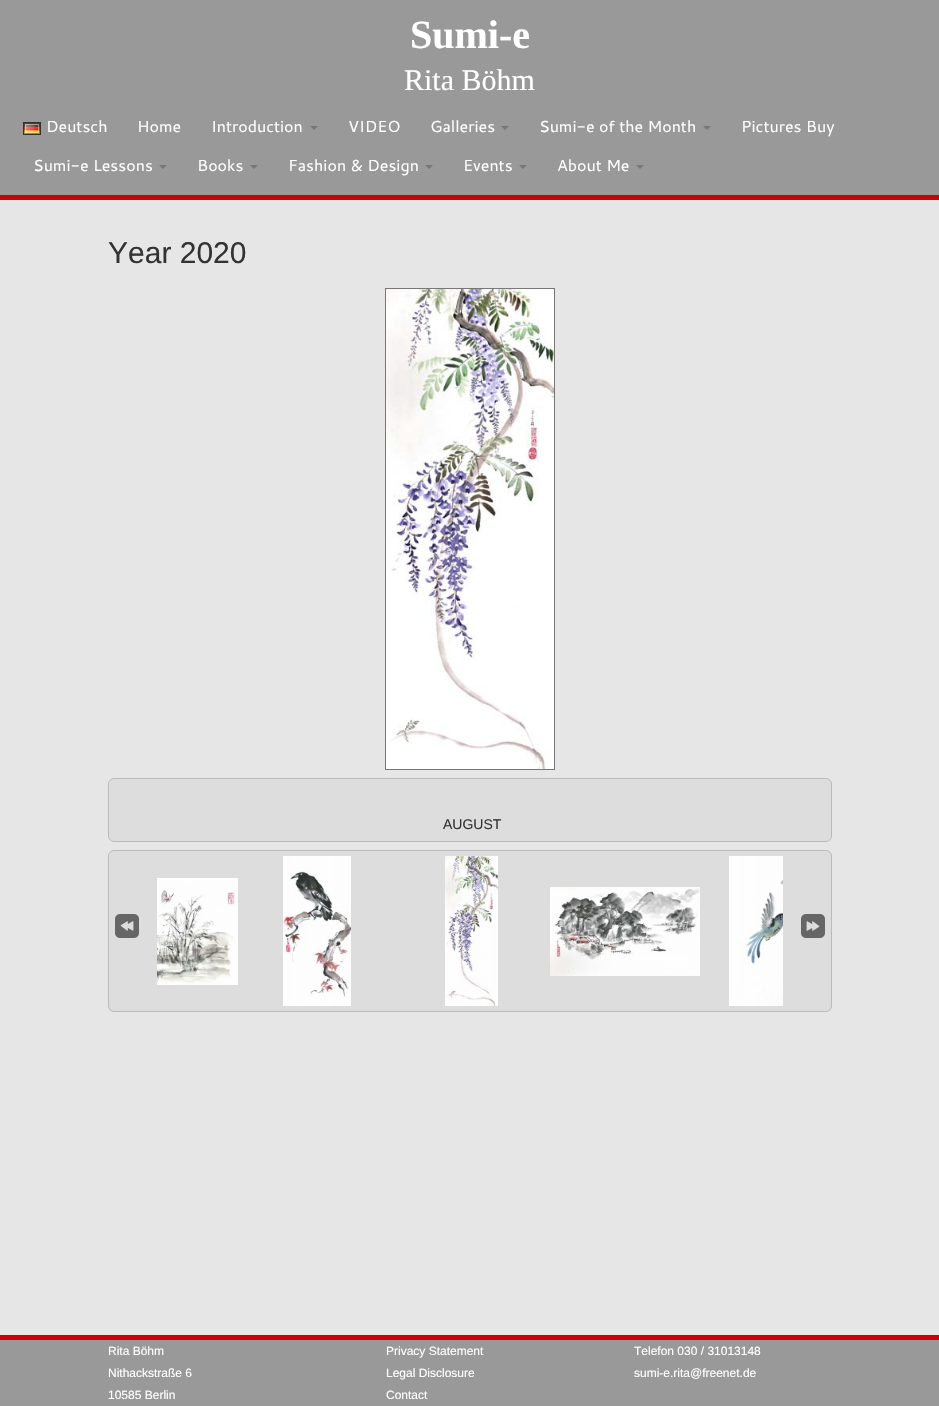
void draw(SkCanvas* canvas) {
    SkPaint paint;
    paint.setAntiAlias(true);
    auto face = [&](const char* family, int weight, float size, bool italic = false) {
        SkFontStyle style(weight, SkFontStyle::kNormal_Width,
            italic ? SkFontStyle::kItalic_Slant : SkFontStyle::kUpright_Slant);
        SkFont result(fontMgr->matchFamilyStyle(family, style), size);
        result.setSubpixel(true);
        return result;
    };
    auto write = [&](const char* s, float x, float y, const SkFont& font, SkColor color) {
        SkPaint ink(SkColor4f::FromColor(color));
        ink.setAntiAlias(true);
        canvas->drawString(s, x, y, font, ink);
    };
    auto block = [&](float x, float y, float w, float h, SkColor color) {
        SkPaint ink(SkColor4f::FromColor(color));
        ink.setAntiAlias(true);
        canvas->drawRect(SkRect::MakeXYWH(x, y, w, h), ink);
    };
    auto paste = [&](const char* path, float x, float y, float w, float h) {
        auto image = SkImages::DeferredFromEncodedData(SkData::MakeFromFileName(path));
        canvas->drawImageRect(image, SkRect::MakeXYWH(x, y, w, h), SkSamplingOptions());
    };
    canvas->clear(SkColorSetRGB(230, 230, 230));
    block(0, 0, 939, 195, SkColorSetRGB(153, 153, 153));
    block(0, 195, 939, 5, SkColorSetRGB(204, 0, 0));
    auto kFont1 = face("Liberation Serif", 700, 40);
    write("Sumi-e", 410, 48, kFont1, SK_ColorWHITE);
    auto kFont2 = face("Liberation Serif", 400, 30);
    write("Rita Böhm", 404, 90, kFont2, SK_ColorWHITE);
    paint.setStyle(SkPaint::kStroke_Style);
    paint.setStrokeWidth(1);
    paint.setColor(SkColorSetRGB(51, 51, 51));
    canvas->drawRect(SkRect::MakeXYWH(23.5f, 122.5f, 17, 12), paint);
    auto kFont3 = face("Cantarell", 400, 16);
    write("Deutsch", 46, 132, kFont3, SK_ColorWHITE);
    paste("pic1.png", 24, 123, 16, 11);
    write("Home", 137, 132, kFont3, SK_ColorWHITE);
    write("Introduction", 211, 132, kFont3, SK_ColorWHITE);
    paint.setStyle(SkPaint::kFill_Style);
    paint.setColor(SkColorSetRGB(119, 119, 119));
    canvas->drawPath(SkPathBuilder().moveTo(310, 126).lineTo(318, 126).lineTo(314, 130).close().detach(), paint);
    write("VIDEO", 348, 132, kFont3, SK_ColorWHITE);
    write("Galleries", 430, 132, kFont3, SK_ColorWHITE);
    canvas->drawPath(SkPathBuilder().moveTo(501, 126).lineTo(509, 126).lineTo(505, 130).close().detach(), paint);
    write("Sumi-e of the Month", 539, 132, kFont3, SK_ColorWHITE);
    canvas->drawPath(SkPathBuilder().moveTo(703, 126).lineTo(711, 126).lineTo(707, 130).close().detach(), paint);
    write("Pictures Buy", 741, 132, kFont3, SK_ColorWHITE);
    write("Sumi-e Lessons", 33, 171, kFont3, SK_ColorWHITE);
    canvas->drawPath(SkPathBuilder().moveTo(159, 165).lineTo(167, 165).lineTo(163, 169).close().detach(), paint);
    write("Books", 197, 171, kFont3, SK_ColorWHITE);
    canvas->drawPath(SkPathBuilder().moveTo(250, 165).lineTo(258, 165).lineTo(254, 169).close().detach(), paint);
    write("Fashion & Design", 288, 171, kFont3, SK_ColorWHITE);
    canvas->drawPath(SkPathBuilder().moveTo(425, 165).lineTo(433, 165).lineTo(429, 169).close().detach(), paint);
    write("Events", 463, 171, kFont3, SK_ColorWHITE);
    canvas->drawPath(SkPathBuilder().moveTo(519, 165).lineTo(527, 165).lineTo(523, 169).close().detach(), paint);
    write("About Me", 557, 171, kFont3, SK_ColorWHITE);
    canvas->drawPath(SkPathBuilder().moveTo(636, 165).lineTo(644, 165).lineTo(640, 169).close().detach(), paint);
    auto kFont4 = face("Liberation Sans", 400, 30);
    write("Year 2020", 108, 263, kFont4, SkColorSetRGB(51, 51, 51));
    paint.setStyle(SkPaint::kStroke_Style);
    canvas->drawRect(SkRect::MakeXYWH(385.5f, 288.5f, 169, 481), paint);
    paste("pic2.png", 386, 289, 168, 480);
    paint.setStyle(SkPaint::kFill_Style);
    paint.setColor(SkColorSetRGB(221, 221, 221));
    canvas->drawRoundRect(SkRect::MakeXYWH(108.5f, 778.5f, 723, 63), 5.5f, 5.5f, paint);
    paint.setStyle(SkPaint::kStroke_Style);
    paint.setColor(SkColorSetRGB(187, 187, 187));
    canvas->drawRoundRect(SkRect::MakeXYWH(108.5f, 778.5f, 723, 63), 5.5f, 5.5f, paint);
    auto kFont5 = face("Liberation Sans", 400, 14);
    write("AUGUST", 443, 829, kFont5, SkColorSetRGB(51, 51, 51));
    paint.setStyle(SkPaint::kFill_Style);
    paint.setColor(SkColorSetRGB(221, 221, 221));
    canvas->drawRoundRect(SkRect::MakeXYWH(108.5f, 850.5f, 723, 161), 5.5f, 5.5f, paint);
    paint.setStyle(SkPaint::kStroke_Style);
    paint.setColor(SkColorSetRGB(187, 187, 187));
    canvas->drawRoundRect(SkRect::MakeXYWH(108.5f, 850.5f, 723, 161), 5.5f, 5.5f, paint);
    paste("pic3.png", 115, 914, 24, 24);
    paste("pic4.png", 157, 878, 81, 107);
    paste("pic5.png", 283, 856, 68, 150);
    paste("pic6.png", 445, 856, 53, 150);
    paste("pic7.png", 550, 887, 150, 89);
    paste("pic8.png", 729, 856, 54, 150);
    paste("pic9.png", 801, 914, 24, 24);
    block(0, 1340, 939, 66, SkColorSetRGB(153, 153, 153));
    block(0, 1335, 939, 5, SkColorSetRGB(204, 0, 0));
    auto kFont6 = face("Liberation Sans", 400, 12);
    write("Rita Böhm", 108, 1355, kFont6, SK_ColorWHITE);
    write("Nithackstraße 6", 108, 1377, kFont6, SK_ColorWHITE);
    write("10585 Berlin", 108, 1399, kFont6, SK_ColorWHITE);
    write("Privacy Statement", 386, 1355, kFont6, SK_ColorWHITE);
    write("Legal Disclosure", 386, 1377, kFont6, SK_ColorWHITE);
    write("Contact", 386, 1399, kFont6, SK_ColorWHITE);
    write("Telefon 030 / 31013148", 634, 1355, kFont6, SK_ColorWHITE);
    write("sumi-e.rita@freenet.de", 634, 1377, kFont6, SK_ColorWHITE);
}
